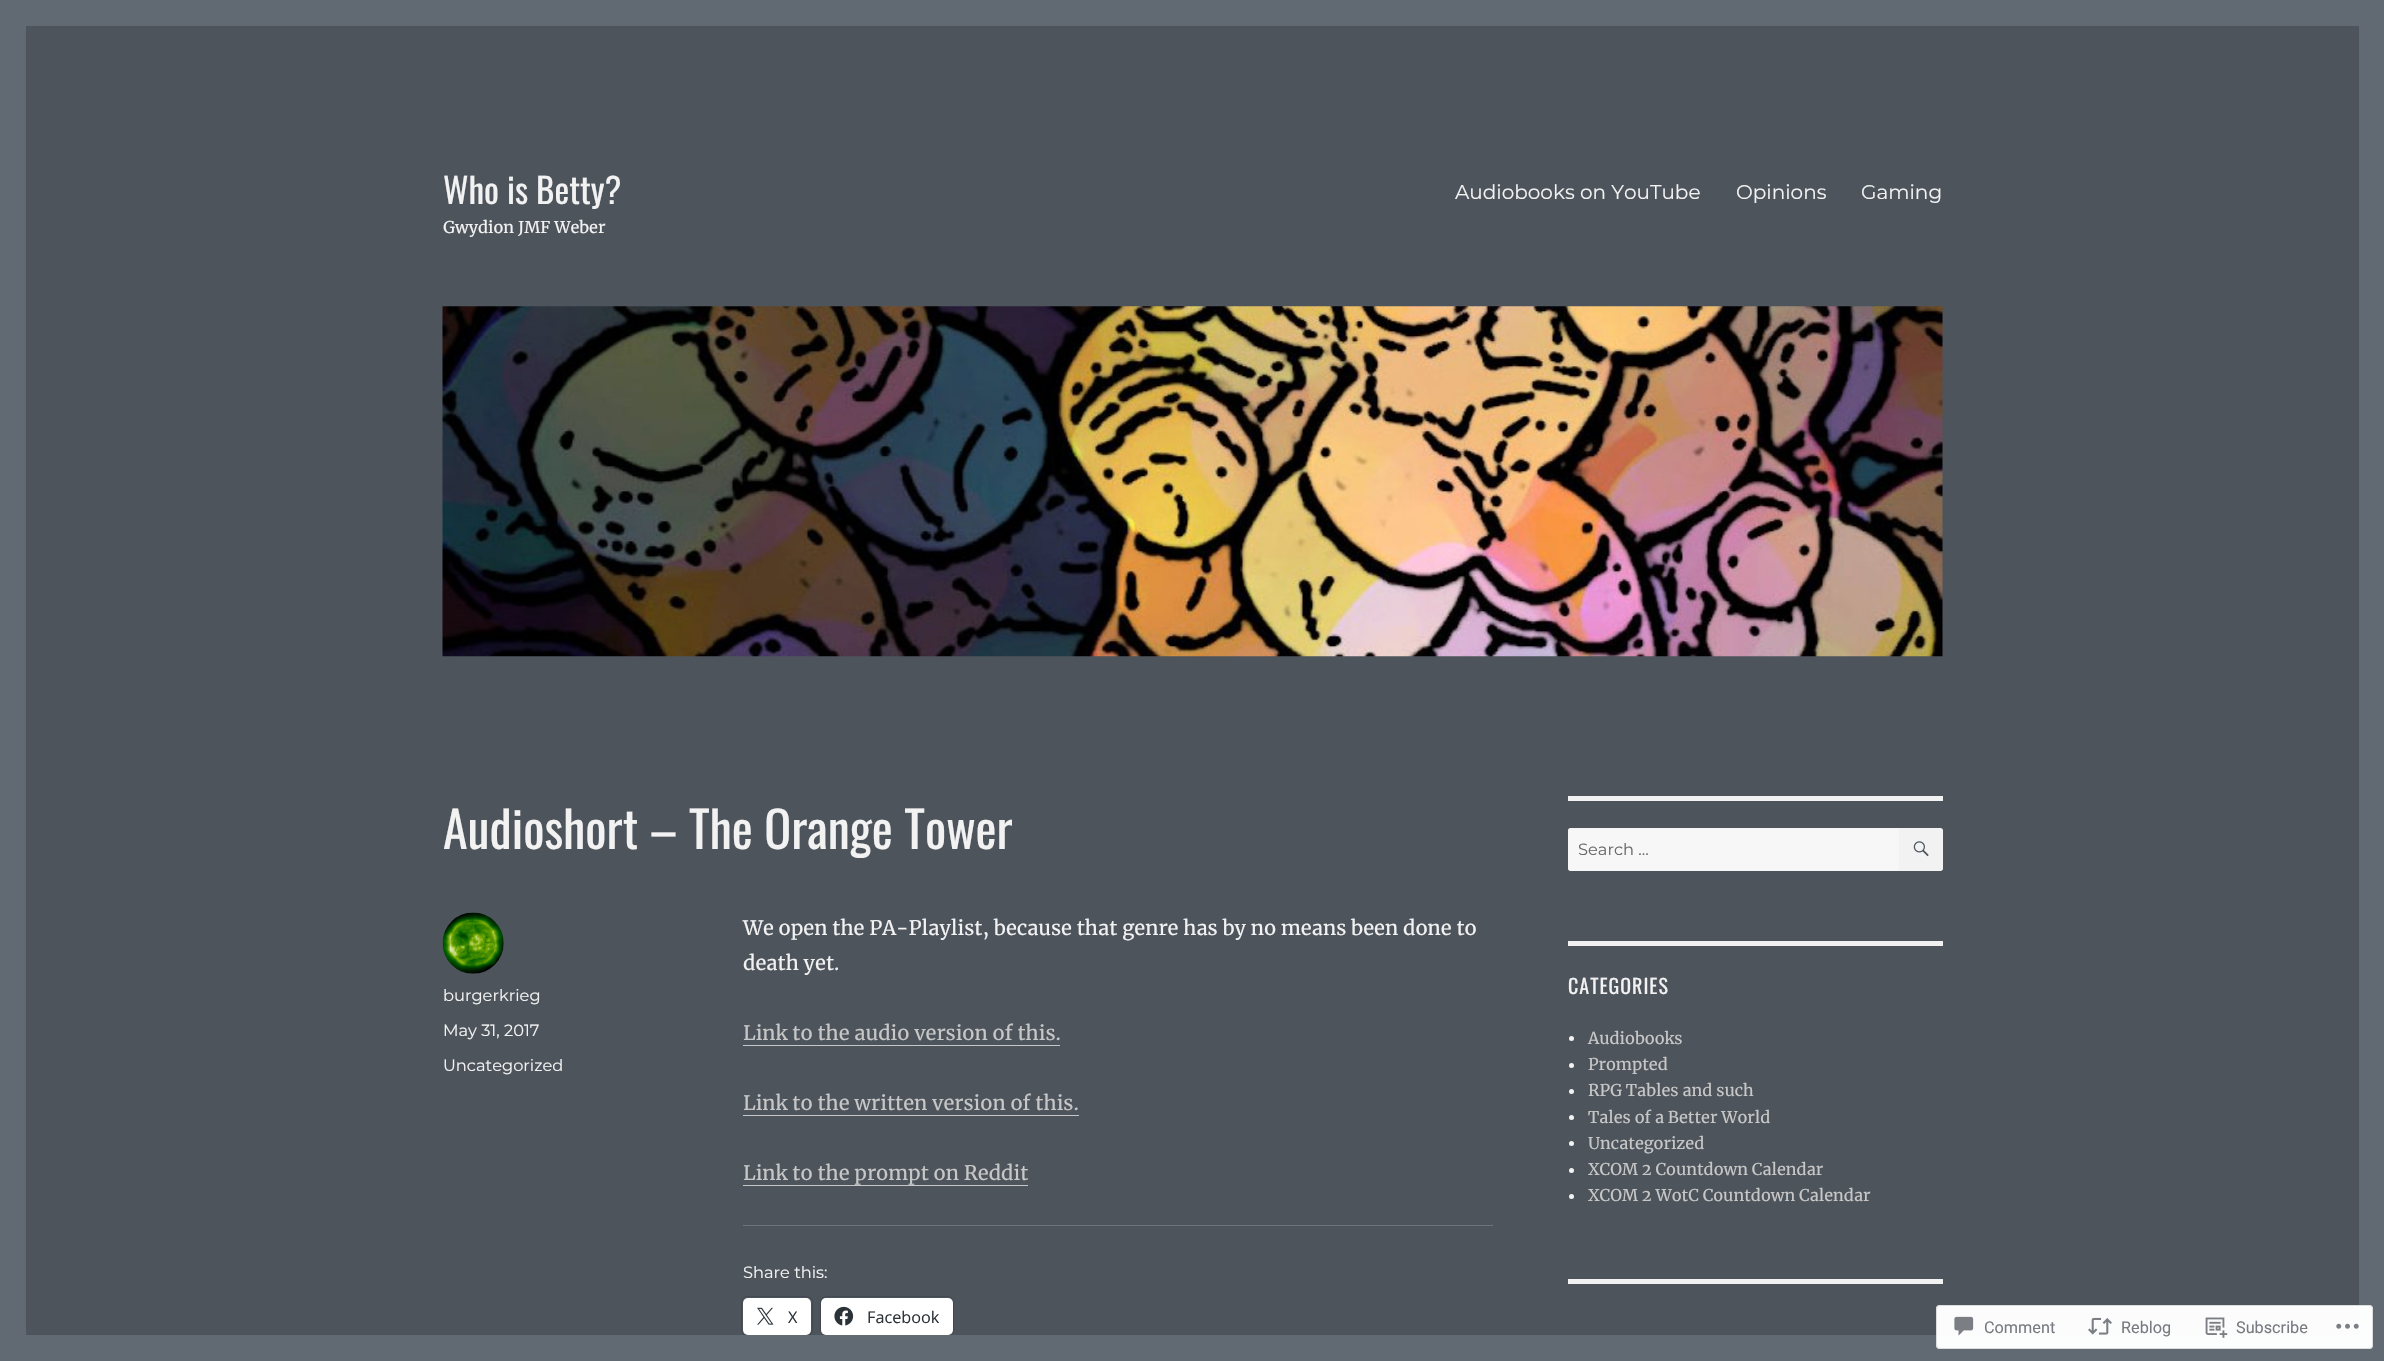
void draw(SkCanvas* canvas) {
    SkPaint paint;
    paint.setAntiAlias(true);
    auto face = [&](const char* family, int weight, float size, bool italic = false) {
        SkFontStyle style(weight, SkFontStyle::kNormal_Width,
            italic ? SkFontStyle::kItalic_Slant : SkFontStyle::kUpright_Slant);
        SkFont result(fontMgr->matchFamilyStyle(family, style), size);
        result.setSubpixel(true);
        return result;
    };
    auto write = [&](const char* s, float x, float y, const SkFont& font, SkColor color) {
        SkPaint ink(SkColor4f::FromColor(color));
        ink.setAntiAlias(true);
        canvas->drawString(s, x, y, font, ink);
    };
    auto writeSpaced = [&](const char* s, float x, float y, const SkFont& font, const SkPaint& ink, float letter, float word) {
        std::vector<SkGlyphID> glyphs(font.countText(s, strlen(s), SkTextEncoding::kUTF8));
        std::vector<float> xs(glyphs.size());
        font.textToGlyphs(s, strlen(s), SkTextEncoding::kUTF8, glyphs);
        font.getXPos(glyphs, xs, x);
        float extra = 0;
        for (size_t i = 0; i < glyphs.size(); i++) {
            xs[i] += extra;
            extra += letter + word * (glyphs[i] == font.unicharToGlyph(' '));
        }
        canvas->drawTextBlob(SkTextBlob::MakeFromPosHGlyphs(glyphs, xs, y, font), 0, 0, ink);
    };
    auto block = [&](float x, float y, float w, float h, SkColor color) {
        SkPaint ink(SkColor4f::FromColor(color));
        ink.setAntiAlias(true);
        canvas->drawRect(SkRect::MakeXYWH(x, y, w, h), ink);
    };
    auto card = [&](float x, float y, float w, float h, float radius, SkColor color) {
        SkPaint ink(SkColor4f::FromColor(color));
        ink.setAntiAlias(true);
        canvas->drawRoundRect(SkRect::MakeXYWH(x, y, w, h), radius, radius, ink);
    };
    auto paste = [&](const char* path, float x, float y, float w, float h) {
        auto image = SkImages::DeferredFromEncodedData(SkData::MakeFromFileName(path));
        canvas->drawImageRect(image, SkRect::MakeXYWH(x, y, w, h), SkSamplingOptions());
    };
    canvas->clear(SkColorSetRGB(97, 106, 115));
    block(26, 26, 2333, 1309, SkColorSetRGB(77, 84, 92));
    auto kFont1 = face("Oswald", 400, 35);
    write("Who is Betty?", 443, 204, kFont1, SkColorSetRGB(242, 242, 242));
    auto kFont2 = face("Merriweather", 400, 16.25f);
    write("Gwydion JMF Weber", 443, 233, kFont2, SkColorSetRGB(242, 242, 242));
    auto kFont3 = face("Montserrat", 100, 20);
    write("Audiobooks on YouTube", 1455, 199, kFont3, SkColorSetRGB(242, 242, 242));
    write("Opinions", 1736, 199, kFont3, SkColorSetRGB(242, 242, 242));
    write("Gaming", 1861, 199, kFont3, SkColorSetRGB(242, 242, 242));
    paste("pic1.png", 442, 306, 1501, 351);
    auto kFont4 = face("Oswald", 400, 50);
    write("Audioshort – The Orange Tower", 443, 849, kFont4, SkColorSetRGB(242, 242, 242));
    paste("pic2.png", 442, 912, 62, 62);
    auto kFont5 = face("Montserrat", 100, 16.25f);
    write("burgerkrieg", 443, 1001, kFont5, SkColorSetRGB(242, 242, 242));
    write("May 31, 2017", 443, 1036, kFont5, SkColorSetRGB(242, 242, 242));
    write("Uncategorized", 443, 1071, kFont5, SkColorSetRGB(242, 242, 242));
    auto kFont6 = face("Merriweather", 400, 20);
    write("We open the PA-Playlist, because that genre has by no means been done to", 743, 935, kFont6, SkColorSetRGB(242, 242, 242));
    write("death yet.", 743, 970, kFont6, SkColorSetRGB(242, 242, 242));
    write("Link to the audio version of this.", 743, 1040, kFont6, SkColorSetRGB(199, 199, 199));
    block(743, 1045, 317, 1, SkColorSetRGB(199, 199, 199));
    write("Link to the written version of this.", 743, 1110, kFont6, SkColorSetRGB(199, 199, 199));
    paint.setColor(SkColorSetRGB(199, 199, 199));
    canvas->drawPath(SkPathBuilder().moveTo(743, 1115).lineTo(743, 1116).lineTo(1079, 1116).lineTo(1079, 1091).lineTo(1079, 1115).close().detach(), paint);
    write("Link to the prompt on Reddit", 743, 1180, kFont6, SkColorSetRGB(199, 199, 199));
    canvas->drawPath(SkPathBuilder().moveTo(743, 1185).lineTo(743, 1186).lineTo(1028, 1186).lineTo(1028, 1161).lineTo(1028, 1185).close().detach(), paint);
    block(743, 1225, 750, 1, SkColorSetRGB(110, 116, 122));
    write("Share this:", 743, 1278, kFont5, SkColorSetRGB(242, 242, 242));
    paint.setStyle(SkPaint::kStroke_Style);
    paint.setStrokeWidth(1);
    paint.setColor(SkColorSetRGB(68, 74, 81));
    canvas->drawRoundRect(SkRect::MakeXYWH(741.5f, 1296.5f, 71, 39), 5.5f, 5.5f, paint);
    paint.setStyle(SkPaint::kFill_Style);
    paint.setColor(SkColorSetARGB(31, 0, 0, 0));
    paint.setMaskFilter(SkMaskFilter::MakeBlur(kNormal_SkBlurStyle, 1));
    canvas->drawRoundRect(SkRect::MakeXYWH(743, 1299, 68, 37), 5, 5, paint);
    paint.setMaskFilter(nullptr);
    card(743, 1298, 68, 37, 5, SK_ColorWHITE);
    paste("pic3.png", 757, 1307, 17, 18);
    auto kFont7 = face("Open Sans", 400, 16.25f);
    write("X", 788, 1323, kFont7, SkColorSetRGB(44, 51, 56));
    paint.setStyle(SkPaint::kStroke_Style);
    paint.setColor(SkColorSetRGB(68, 74, 81));
    canvas->drawRoundRect(SkRect::MakeXYWH(820.5f, 1296.5f, 133, 39), 5.5f, 5.5f, paint);
    paint.setStyle(SkPaint::kFill_Style);
    paint.setColor(SkColorSetARGB(31, 0, 0, 0));
    paint.setMaskFilter(SkMaskFilter::MakeBlur(kNormal_SkBlurStyle, 1));
    canvas->drawRoundRect(SkRect::MakeXYWH(821, 1299, 132, 37), 5, 5, paint);
    paint.setMaskFilter(nullptr);
    card(821, 1298, 132, 37, 5, SK_ColorWHITE);
    paste("pic4.png", 834, 1306, 20, 20);
    write("Facebook", 867, 1323, kFont7, SkColorSetRGB(44, 51, 56));
    block(1568, 796, 375, 5, SkColorSetRGB(242, 242, 242));
    paint.setColor(SkColorSetRGB(247, 247, 247));
    canvas->drawPath(SkPathBuilder().moveTo(1570.5f, 828).lineTo(1899, 828).lineTo(1899, 871).lineTo(1570.5f, 871).cubicTo(1569, 871, 1568, 870, 1568, 868.5f).lineTo(1568, 830.5f).cubicTo(1568, 829, 1569, 828, 1570.5f, 828).close().detach(), paint);
    paint.setStyle(SkPaint::kStroke_Style);
    paint.setColor(SkColorSetARGB(51, 242, 242, 242));
    canvas->drawPath(SkPathBuilder().moveTo(1570.5f, 828.5f).lineTo(1898.5f, 828.5f).lineTo(1898.5f, 870.5f).lineTo(1570.5f, 870.5f).cubicTo(1569.5f, 870.5f, 1568.5f, 869.5f, 1568.5f, 868.5f).lineTo(1568.5f, 830.5f).cubicTo(1568.5f, 829.5f, 1569.5f, 828.5f, 1570.5f, 828.5f).close().detach(), paint);
    write("Search …", 1578, 855, kFont5, SkColorSetRGB(104, 104, 104));
    paint.setStyle(SkPaint::kFill_Style);
    paint.setColor(SkColorSetRGB(242, 242, 242));
    canvas->drawPath(SkPathBuilder().moveTo(1899, 828).lineTo(1940.5f, 828).cubicTo(1942, 828, 1943, 829, 1943, 830.5f).lineTo(1943, 868.5f).cubicTo(1943, 870, 1942, 871, 1940.5f, 871).lineTo(1899, 871).close().detach(), paint);
    paste("pic5.png", 1913, 841, 16, 16);
    block(1568, 941, 375, 5, SkColorSetRGB(242, 242, 242));
    auto kFont8 = face("Oswald", 400, 20);
    writeSpaced("CATEGORIES", 1568, 994, kFont8, paint, 1, 0);
    canvas->drawCircle(1571.5f, 1038.5f, 2.5f, paint);
    write("Audiobooks", 1588, 1044, kFont2, SkColorSetRGB(199, 199, 199));
    canvas->drawCircle(1571.5f, 1065.5f, 2.5f, paint);
    write("Prompted", 1588, 1070, kFont2, SkColorSetRGB(199, 199, 199));
    canvas->drawCircle(1571.5f, 1091.5f, 2.5f, paint);
    write("RPG Tables and such", 1588, 1096, kFont2, SkColorSetRGB(199, 199, 199));
    canvas->drawCircle(1571.5f, 1117.5f, 2.5f, paint);
    write("Tales of a Better World", 1588, 1123, kFont2, SkColorSetRGB(199, 199, 199));
    canvas->drawCircle(1571.5f, 1143.5f, 2.5f, paint);
    write("Uncategorized", 1588, 1149, kFont2, SkColorSetRGB(199, 199, 199));
    canvas->drawCircle(1571.5f, 1170.5f, 2.5f, paint);
    write("XCOM 2 Countdown Calendar", 1588, 1175, kFont2, SkColorSetRGB(199, 199, 199));
    canvas->drawCircle(1571.5f, 1196.5f, 2.5f, paint);
    write("XCOM 2 WotC Countdown Calendar", 1588, 1201, kFont2, SkColorSetRGB(199, 199, 199));
    block(1568, 1279, 375, 5, SkColorSetRGB(242, 242, 242));
    block(744, 1335, 208, 2, SkColorSetRGB(97, 106, 115));
    card(1936, 1305, 437, 44, 4, SkColorSetARGB(250, 255, 255, 255));
    paint.setStyle(SkPaint::kStroke_Style);
    paint.setColor(SkColorSetARGB(250, 220, 220, 222));
    canvas->drawRoundRect(SkRect::MakeXYWH(1936.5f, 1305.5f, 436, 43), 3.5f, 3.5f, paint);
    paste("pic6.png", 1954, 1316, 20, 20);
    auto kFont9 = face("Roboto", 400, 16.25f);
    write("Comment", 1984, 1333, kFont9, SkColorSetRGB(119, 123, 129));
    paste("pic7.png", 2088, 1317, 24, 18);
    write("Reblog", 2121, 1333, kFont9, SkColorSetRGB(119, 123, 129));
    paste("pic8.png", 2205, 1317, 23, 21);
    write("Subscribe", 2236, 1333, kFont9, SkColorSetRGB(119, 123, 129));
    paste("pic9.png", 2336, 1323, 23, 6);
}
